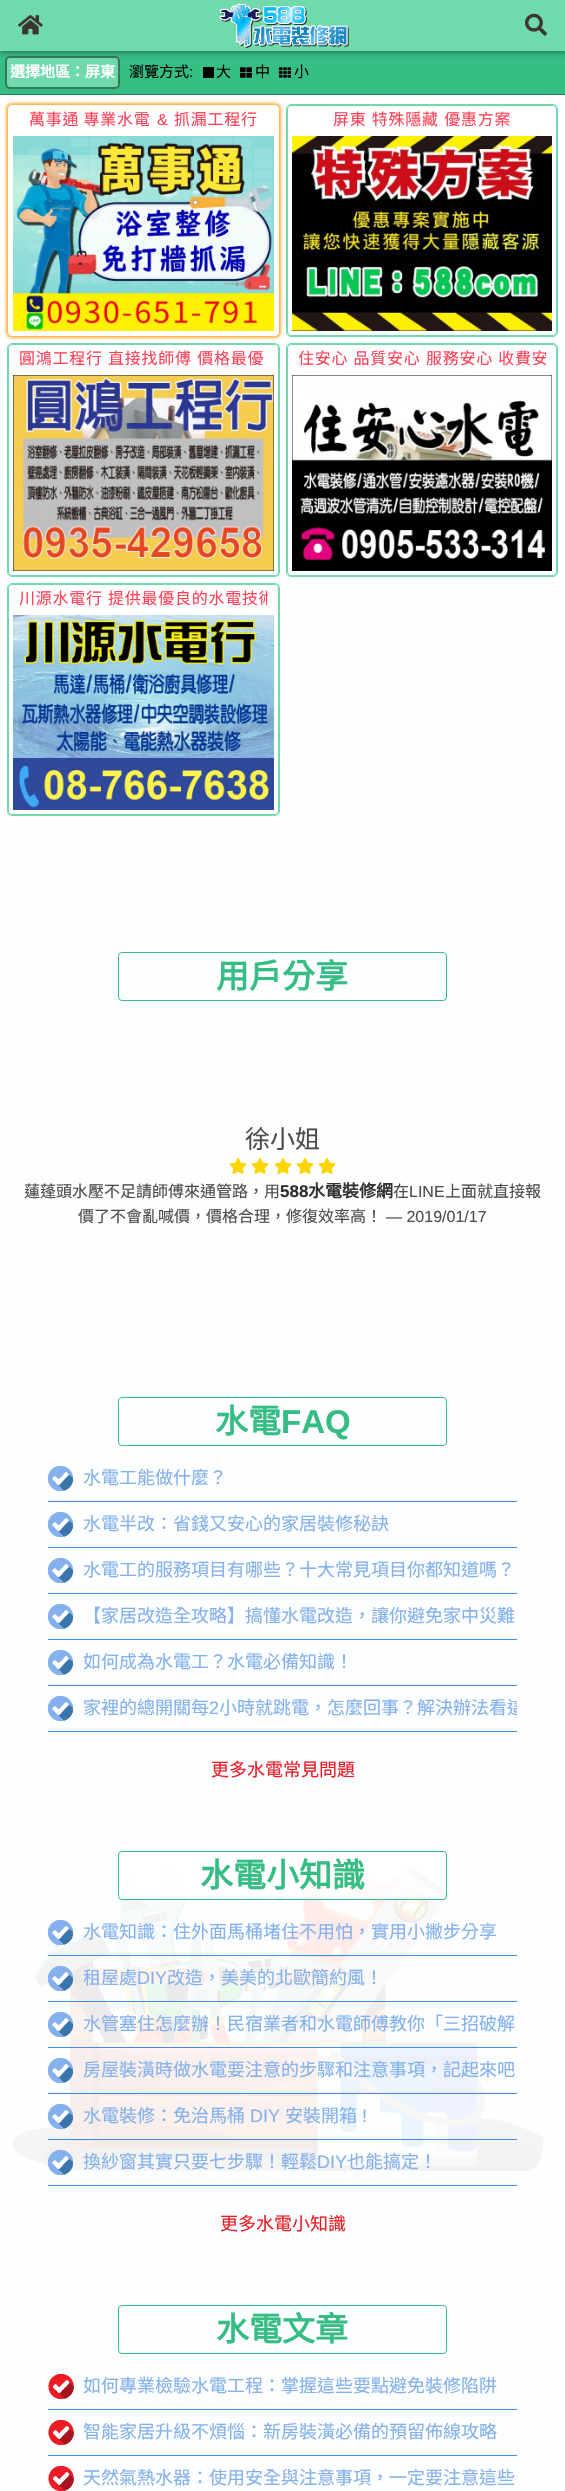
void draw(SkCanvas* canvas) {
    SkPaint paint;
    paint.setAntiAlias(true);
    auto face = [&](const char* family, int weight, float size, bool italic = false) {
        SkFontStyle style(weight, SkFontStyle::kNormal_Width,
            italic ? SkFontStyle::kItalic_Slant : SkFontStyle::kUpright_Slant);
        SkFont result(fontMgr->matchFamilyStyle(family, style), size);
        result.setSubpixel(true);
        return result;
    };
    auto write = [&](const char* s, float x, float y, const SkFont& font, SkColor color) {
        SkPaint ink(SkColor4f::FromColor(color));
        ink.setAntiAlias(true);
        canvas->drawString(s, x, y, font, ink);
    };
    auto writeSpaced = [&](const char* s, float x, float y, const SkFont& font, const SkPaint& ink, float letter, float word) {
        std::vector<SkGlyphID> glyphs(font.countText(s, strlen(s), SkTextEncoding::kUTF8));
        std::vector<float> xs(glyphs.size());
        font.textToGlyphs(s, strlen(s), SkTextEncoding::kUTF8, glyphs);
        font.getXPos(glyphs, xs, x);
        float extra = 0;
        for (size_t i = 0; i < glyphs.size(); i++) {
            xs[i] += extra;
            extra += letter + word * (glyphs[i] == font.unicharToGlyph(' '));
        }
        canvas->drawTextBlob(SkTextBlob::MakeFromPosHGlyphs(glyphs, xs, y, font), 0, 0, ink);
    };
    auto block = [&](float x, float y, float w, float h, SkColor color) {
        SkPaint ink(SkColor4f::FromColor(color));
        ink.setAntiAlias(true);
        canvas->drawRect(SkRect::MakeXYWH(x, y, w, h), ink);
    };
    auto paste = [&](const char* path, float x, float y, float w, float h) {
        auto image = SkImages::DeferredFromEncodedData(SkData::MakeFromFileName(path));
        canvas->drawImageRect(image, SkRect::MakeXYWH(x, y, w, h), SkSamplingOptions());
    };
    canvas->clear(SkColorSetRGB(253, 254, 255));
    paste("pic1.png", 11, 1852, 533, 319);
    block(0, 51, 565, 43, SkColorSetRGB(54, 189, 132));
    paint.setColor(SkColorSetRGB(112, 218, 173));
    canvas->drawRoundRect(SkRect::MakeXYWH(6, 57, 113, 31), 4, 4, paint);
    paint.setStyle(SkPaint::kStroke_Style);
    paint.setStrokeWidth(2);
    paint.setColor(SkColorSetRGB(53, 119, 92));
    canvas->drawRoundRect(SkRect::MakeXYWH(6, 57, 113, 31), 4, 4, paint);
    paint.setStyle(SkPaint::kFill_Style);
    paint.setColor(SkColorSetARGB(89, 0, 0, 0));
    paint.setMaskFilter(SkMaskFilter::MakeBlur(kNormal_SkBlurStyle, 2.5f));
    canvas->drawRect(SkRect::MakeXYWH(0, 2, 565, 51), paint);
    paint.setMaskFilter(nullptr);
    block(0, 0, 565, 51, SkColorSetRGB(112, 218, 173));
    paste("pic2.png", 18, 15, 25, 20);
    paste("pic3.png", 219, 3, 130, 45);
    paste("pic4.png", 525, 13, 22, 23);
    block(0, 94, 565, 1, SkColorSetRGB(36, 126, 88));
    auto kFont1 = face("Noto Sans CJK TC", 700, 15);
    write("選擇地區：屏東", 10, 77, kFont1, SK_ColorWHITE);
    auto kFont2 = face("Noto Sans CJK TC", 400, 15);
    write("瀏覽方式", 129, 77, kFont2, SK_ColorBLACK);
    auto kFont3 = face("Liberation Sans", 400, 15);
    write(":", 189, 77, kFont3, SK_ColorBLACK);
    block(203, 67, 11, 11, SK_ColorBLACK);
    write("大", 216, 77, kFont2, SK_ColorBLACK);
    paste("pic5.png", 240, 67, 12, 11);
    write("中", 255, 77, kFont2, SK_ColorBLACK);
    paste("pic6.png", 279, 67, 12, 11);
    write("小", 294, 77, kFont2, SK_ColorBLACK);
    paint.setColor(SkColorSetRGB(251, 176, 59));
    paint.setMaskFilter(SkMaskFilter::MakeBlur(kNormal_SkBlurStyle, 1.5f));
    canvas->drawRoundRect(SkRect::MakeXYWH(6, 103, 275, 235), 6, 6, paint);
    paint.setMaskFilter(nullptr);
    paint.setColor(SK_ColorWHITE);
    canvas->drawRoundRect(SkRect::MakeXYWH(8.5f, 105.5f, 270, 230), 3.5f, 3.5f, paint);
    paint.setStyle(SkPaint::kStroke_Style);
    paint.setStrokeWidth(1);
    canvas->drawRoundRect(SkRect::MakeXYWH(8.5f, 105.5f, 270, 230), 3.5f, 3.5f, paint);
    auto kFont4 = face("Noto Sans CJK TC", 400, 16);
    paint.setStyle(SkPaint::kFill_Style);
    paint.setColor(SkColorSetRGB(255, 66, 88));
    writeSpaced("萬事通 專業水電", 29, 125, kFont4, paint, 0.75f, 0);
    auto kFont5 = face("Liberation Sans", 400, 16);
    writeSpaced("&", 157, 125, kFont5, paint, 0.75f, 0);
    writeSpaced("抓漏工程行", 174, 125, kFont4, paint, 0.75f, 0);
    paste("pic7.png", 13, 136, 261, 195);
    paint.setStyle(SkPaint::kStroke_Style);
    paint.setColor(SkColorSetRGB(112, 218, 173));
    canvas->drawRoundRect(SkRect::MakeXYWH(286.5f, 104.5f, 271, 232), 4.5f, 4.5f, paint);
    paint.setStyle(SkPaint::kFill_Style);
    paint.setColor(SK_ColorWHITE);
    canvas->drawRoundRect(SkRect::MakeXYWH(287.5f, 105.5f, 269, 230), 3.5f, 3.5f, paint);
    paint.setStyle(SkPaint::kStroke_Style);
    paint.setColor(SkColorSetRGB(112, 218, 173));
    canvas->drawRoundRect(SkRect::MakeXYWH(287.5f, 105.5f, 269, 230), 3.5f, 3.5f, paint);
    paint.setStyle(SkPaint::kFill_Style);
    paint.setColor(SkColorSetRGB(255, 66, 88));
    writeSpaced("屏東 特殊隱藏 優惠方案", 333, 125, kFont4, paint, 0.75f, 1);
    paste("pic8.png", 292, 136, 260, 195);
    paint.setStyle(SkPaint::kStroke_Style);
    paint.setColor(SkColorSetRGB(112, 218, 173));
    canvas->drawRoundRect(SkRect::MakeXYWH(7.5f, 343.5f, 272, 233), 4.5f, 4.5f, paint);
    paint.setStyle(SkPaint::kFill_Style);
    paint.setColor(SK_ColorWHITE);
    canvas->drawRoundRect(SkRect::MakeXYWH(8.5f, 344.5f, 270, 231), 3.5f, 3.5f, paint);
    paint.setStyle(SkPaint::kStroke_Style);
    paint.setColor(SkColorSetRGB(112, 218, 173));
    canvas->drawRoundRect(SkRect::MakeXYWH(8.5f, 344.5f, 270, 231), 3.5f, 3.5f, paint);
    paint.setStyle(SkPaint::kFill_Style);
    paint.setColor(SkColorSetRGB(255, 66, 88));
    writeSpaced("圓鴻工程行 直接找師傅 價格最優", 19, 364, kFont4, paint, 0.75f, 1);
    paste("pic9.png", 13, 375, 261, 196);
    paint.setStyle(SkPaint::kStroke_Style);
    paint.setColor(SkColorSetRGB(112, 218, 173));
    canvas->drawRoundRect(SkRect::MakeXYWH(286.5f, 343.5f, 271, 233), 4.5f, 4.5f, paint);
    paint.setStyle(SkPaint::kFill_Style);
    paint.setColor(SK_ColorWHITE);
    canvas->drawRoundRect(SkRect::MakeXYWH(287.5f, 344.5f, 269, 231), 3.5f, 3.5f, paint);
    paint.setStyle(SkPaint::kStroke_Style);
    paint.setColor(SkColorSetRGB(112, 218, 173));
    canvas->drawRoundRect(SkRect::MakeXYWH(287.5f, 344.5f, 269, 231), 3.5f, 3.5f, paint);
    canvas->save();
    canvas->clipRect(SkRect::MakeXYWH(298, 349, 248, 19));
    paint.setStyle(SkPaint::kFill_Style);
    paint.setColor(SkColorSetRGB(255, 66, 88));
    writeSpaced("住安心 品質安心 服務安心 收費安", 298, 364, kFont4, paint, 0.75f, 1);
    canvas->restore();
    paste("pic10.png", 292, 375, 260, 196);
    paint.setStyle(SkPaint::kStroke_Style);
    paint.setColor(SkColorSetRGB(112, 218, 173));
    canvas->drawRoundRect(SkRect::MakeXYWH(7.5f, 583.5f, 272, 232), 4.5f, 4.5f, paint);
    paint.setStyle(SkPaint::kFill_Style);
    paint.setColor(SK_ColorWHITE);
    canvas->drawRoundRect(SkRect::MakeXYWH(8.5f, 584.5f, 270, 230), 3.5f, 3.5f, paint);
    paint.setStyle(SkPaint::kStroke_Style);
    paint.setColor(SkColorSetRGB(112, 218, 173));
    canvas->drawRoundRect(SkRect::MakeXYWH(8.5f, 584.5f, 270, 230), 3.5f, 3.5f, paint);
    canvas->save();
    canvas->clipRect(SkRect::MakeXYWH(19, 589, 249, 19));
    paint.setStyle(SkPaint::kFill_Style);
    paint.setColor(SkColorSetRGB(255, 66, 88));
    writeSpaced("川源水電行 提供最優良的水電技術", 19, 604, kFont4, paint, 0.75f, 1);
    canvas->restore();
    paste("pic11.png", 13, 615, 261, 195);
    paint.setStyle(SkPaint::kStroke_Style);
    paint.setColor(SkColorSetRGB(54, 189, 132));
    canvas->drawRoundRect(SkRect::MakeXYWH(118.5f, 952.5f, 328, 48), 3.5f, 3.5f, paint);
    auto kFont6 = face("Noto Sans CJK TC", 700, 33);
    write("用戶分享", 216, 988, kFont6, SkColorSetRGB(54, 189, 132));
    auto kFont7 = face("Noto Sans CJK TC", 400, 25);
    write("徐小姐", 245, 1148, kFont7, SkColorSetRGB(76, 76, 76));
    paste("pic12.png", 229, 1158, 18, 16);
    paste("pic12.png", 251, 1158, 18, 16);
    paste("pic12.png", 274, 1158, 18, 16);
    paste("pic12.png", 296, 1158, 18, 16);
    paste("pic12.png", 318, 1158, 18, 16);
    write("蓮蓬頭水壓不足請師傅來通管路，用", 24, 1197, kFont4, SkColorSetRGB(76, 76, 76));
    auto kFont8 = face("Liberation Sans", 700, 17);
    write("588", 280, 1197, kFont8, SkColorSetRGB(48, 48, 48));
    auto kFont9 = face("Noto Sans CJK TC", 700, 17);
    write("水電裝修網", 308, 1197, kFont9, SkColorSetRGB(48, 48, 48));
    write("在", 393, 1197, kFont4, SkColorSetRGB(76, 76, 76));
    write("LINE", 409, 1197, kFont5, SkColorSetRGB(76, 76, 76));
    write("上面就直接報", 445, 1197, kFont4, SkColorSetRGB(76, 76, 76));
    write("價了不會亂喊價，價格合理，修復效率高！", 78, 1222, kFont4, SkColorSetRGB(76, 76, 76));
    write("— 2019/01/17", 386, 1222, kFont5, SkColorSetRGB(76, 76, 76));
    canvas->drawRoundRect(SkRect::MakeXYWH(118.5f, 1397.5f, 328, 48), 3.5f, 3.5f, paint);
    write("水電", 215, 1433, kFont6, SkColorSetRGB(54, 189, 132));
    auto kFont10 = face("Liberation Sans", 700, 33);
    write("FAQ", 281, 1433, kFont10, SkColorSetRGB(54, 189, 132));
    block(48, 1501, 469, 1, SkColorSetRGB(68, 137, 229));
    paste("pic13.png", 48, 1466, 25, 25);
    auto kFont11 = face("Noto Sans CJK TC", 400, 18);
    write("水電工能做什麼？", 83, 1484, kFont11, SkColorSetRGB(132, 177, 237));
    block(48, 1547, 469, 1, SkColorSetRGB(68, 137, 229));
    paste("pic13.png", 48, 1512, 25, 25);
    write("水電半改：省錢又安心的家居裝修秘訣", 83, 1530, kFont11, SkColorSetRGB(132, 177, 237));
    block(48, 1593, 469, 1, SkColorSetRGB(68, 137, 229));
    paste("pic13.png", 48, 1558, 25, 25);
    write("水電工的服務項目有哪些？十大常見項目你都知道嗎？", 83, 1576, kFont11, SkColorSetRGB(132, 177, 237));
    block(48, 1639, 469, 1, SkColorSetRGB(68, 137, 229));
    paste("pic13.png", 48, 1604, 25, 25);
    write("【家居改造全攻略】搞懂水電改造，讓你避免家中災難", 83, 1622, kFont11, SkColorSetRGB(132, 177, 237));
    block(48, 1685, 469, 1, SkColorSetRGB(68, 137, 229));
    paste("pic13.png", 48, 1650, 25, 25);
    write("如何成為水電工？水電必備知識！", 83, 1668, kFont11, SkColorSetRGB(132, 177, 237));
    block(48, 1731, 469, 1, SkColorSetRGB(68, 137, 229));
    paste("pic13.png", 48, 1696, 25, 25);
    write("家裡的總開關每", 83, 1714, kFont11, SkColorSetRGB(132, 177, 237));
    auto kFont12 = face("Liberation Sans", 400, 18);
    write("2", 209, 1714, kFont12, SkColorSetRGB(132, 177, 237));
    canvas->save();
    canvas->clipRect(SkRect::MakeXYWH(48, 1686, 469, 45));
    write("小時就跳電，怎麼回事？解決辦法看這", 219, 1714, kFont11, SkColorSetRGB(132, 177, 237));
    canvas->restore();
    write("更多水電常見問題", 211, 1776, kFont11, SkColorSetRGB(237, 28, 36));
    paint.setStyle(SkPaint::kFill_Style);
    paint.setColor(SkColorSetARGB(179, 255, 255, 255));
    canvas->drawRoundRect(SkRect::MakeXYWH(118.5f, 1851.5f, 328, 48), 3.5f, 3.5f, paint);
    paint.setStyle(SkPaint::kStroke_Style);
    paint.setColor(SkColorSetRGB(54, 189, 132));
    canvas->drawRoundRect(SkRect::MakeXYWH(118.5f, 1851.5f, 328, 48), 3.5f, 3.5f, paint);
    write("水電小知識", 200, 1887, kFont6, SkColorSetRGB(54, 189, 132));
    block(48, 1955, 469, 1, SkColorSetRGB(68, 137, 229));
    paste("pic14.png", 48, 1920, 25, 25);
    write("水電知識：住外面馬桶堵住不用怕，實用小撇步分享", 83, 1938, kFont11, SkColorSetRGB(132, 177, 237));
    block(48, 2001, 469, 1, SkColorSetRGB(68, 137, 229));
    paste("pic15.png", 48, 1966, 25, 25);
    write("租屋處", 83, 1984, kFont11, SkColorSetRGB(132, 177, 237));
    write("DIY", 137, 1984, kFont12, SkColorSetRGB(132, 177, 237));
    write("改造，美美的北歐簡約風！", 167, 1984, kFont11, SkColorSetRGB(132, 177, 237));
    block(48, 2047, 469, 1, SkColorSetRGB(68, 137, 229));
    paste("pic16.png", 48, 2012, 25, 25);
    write("水管塞住怎麼辦！民宿業者和水電師傅教你「三招破解", 83, 2030, kFont11, SkColorSetRGB(132, 177, 237));
    block(48, 2093, 469, 1, SkColorSetRGB(68, 137, 229));
    paste("pic17.png", 48, 2058, 25, 25);
    write("房屋裝潢時做水電要注意的步驟和注意事項，記起來吧", 83, 2076, kFont11, SkColorSetRGB(132, 177, 237));
    block(48, 2139, 469, 1, SkColorSetRGB(68, 137, 229));
    paste("pic18.png", 48, 2104, 25, 25);
    write("水電裝修：免治馬桶", 83, 2122, kFont11, SkColorSetRGB(132, 177, 237));
    write("DIY", 250, 2122, kFont12, SkColorSetRGB(132, 177, 237));
    write("安裝開箱", 285, 2122, kFont11, SkColorSetRGB(132, 177, 237));
    write("!", 362, 2122, kFont12, SkColorSetRGB(132, 177, 237));
    block(48, 2185, 469, 1, SkColorSetRGB(68, 137, 229));
    paste("pic19.png", 48, 2150, 25, 25);
    write("換紗窗其實只要七步驟！輕鬆", 83, 2168, kFont11, SkColorSetRGB(132, 177, 237));
    write("DIY", 317, 2168, kFont12, SkColorSetRGB(132, 177, 237));
    write("也能搞定！", 347, 2168, kFont11, SkColorSetRGB(132, 177, 237));
    write("更多水電小知識", 220, 2230, kFont11, SkColorSetRGB(237, 28, 36));
    canvas->drawRoundRect(SkRect::MakeXYWH(118.5f, 2305.5f, 328, 48), 3.5f, 3.5f, paint);
    write("水電文章", 216, 2341, kFont6, SkColorSetRGB(54, 189, 132));
    block(48, 2409, 469, 1, SkColorSetRGB(68, 137, 229));
    paste("pic20.png", 48, 2374, 26, 25);
    write("如何專業檢驗水電工程：掌握這些要點避免裝修陷阱", 83, 2392, kFont11, SkColorSetRGB(132, 177, 237));
    block(48, 2455, 469, 1, SkColorSetRGB(68, 137, 229));
    paste("pic20.png", 48, 2420, 26, 25);
    write("智能家居升級不煩惱：新房裝潢必備的預留佈線攻略", 83, 2438, kFont11, SkColorSetRGB(132, 177, 237));
    paste("pic20.png", 48, 2466, 26, 25);
    write("天然氣熱水器：使用安全與注意事項，一定要注意這些", 83, 2484, kFont11, SkColorSetRGB(132, 177, 237));
}
